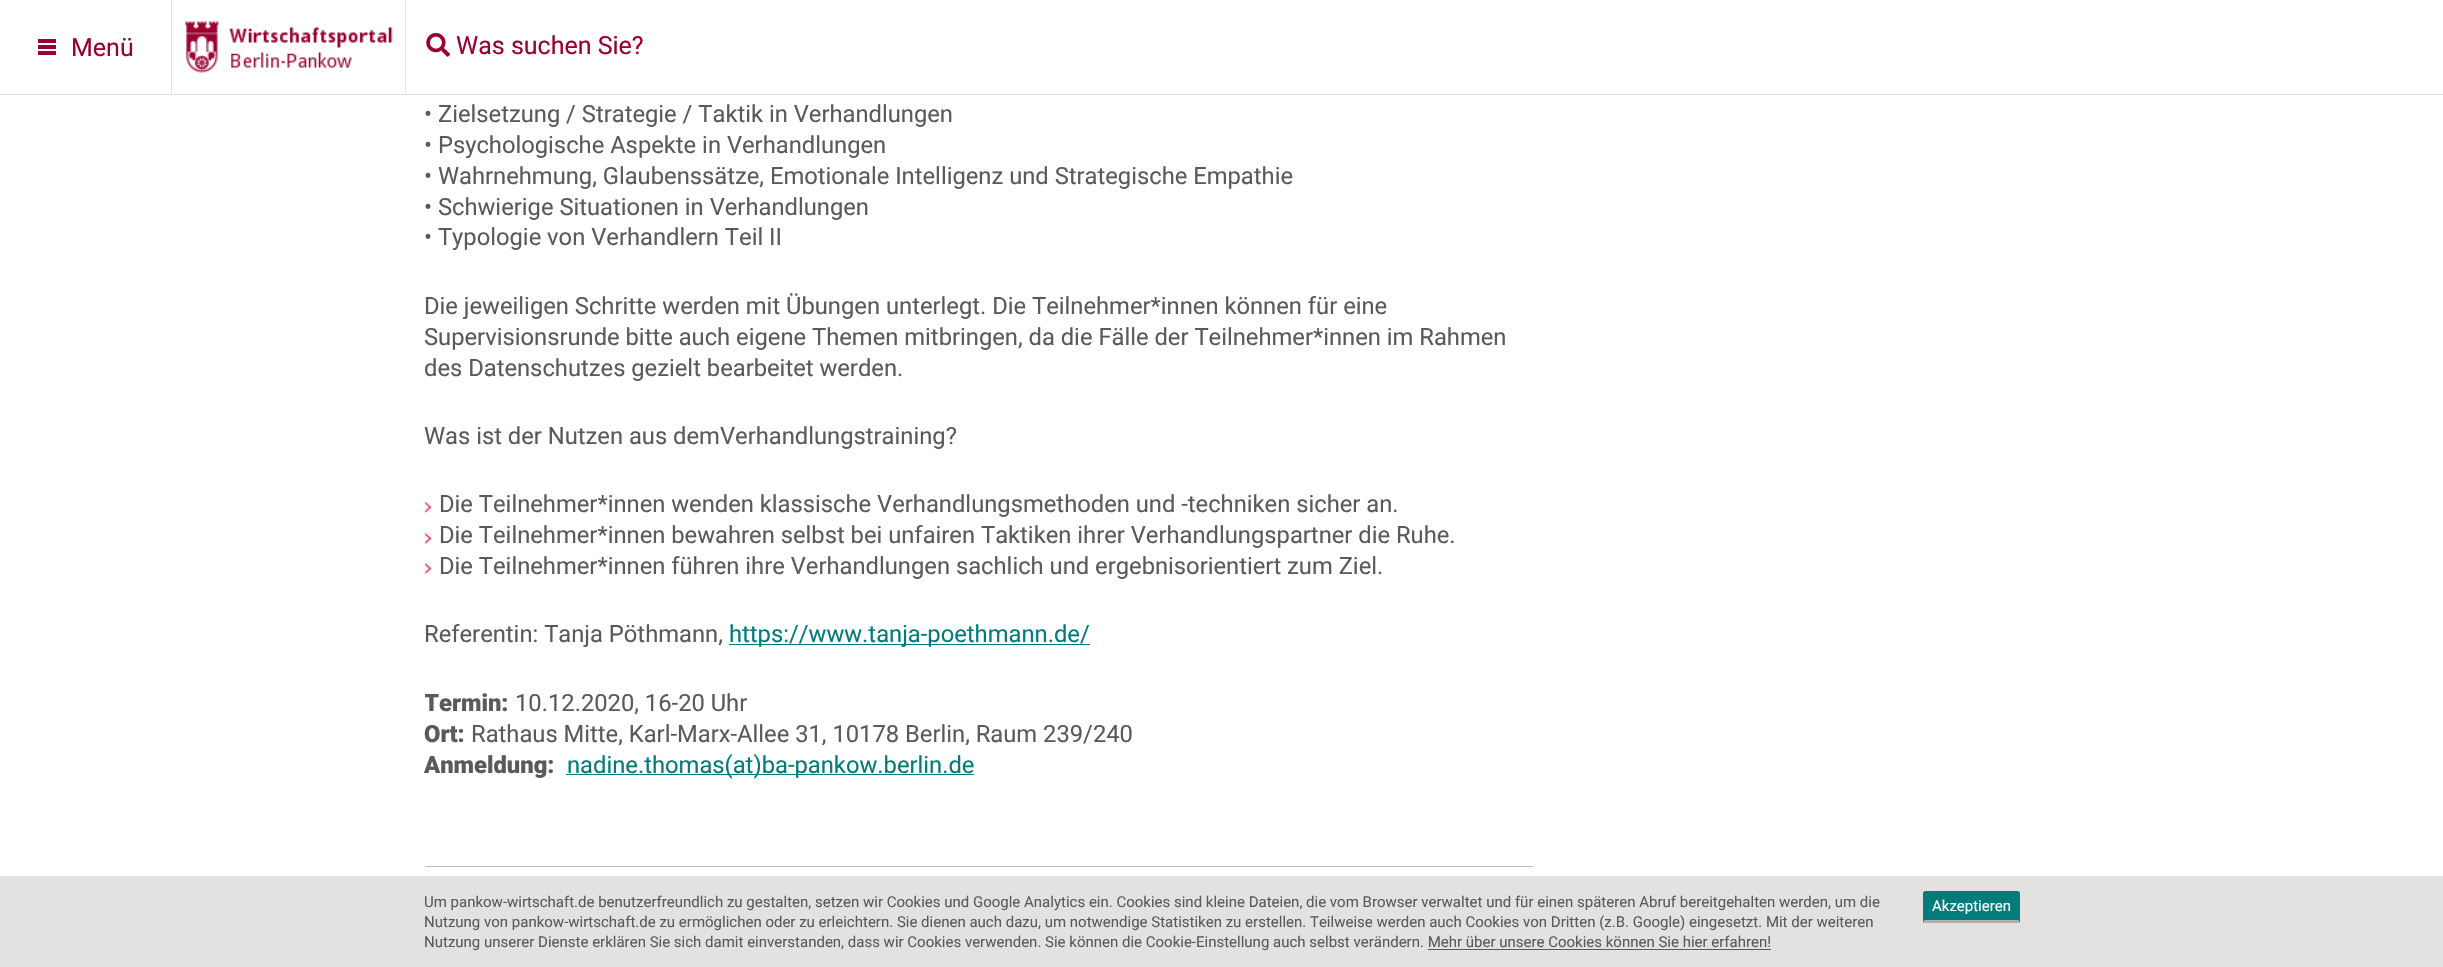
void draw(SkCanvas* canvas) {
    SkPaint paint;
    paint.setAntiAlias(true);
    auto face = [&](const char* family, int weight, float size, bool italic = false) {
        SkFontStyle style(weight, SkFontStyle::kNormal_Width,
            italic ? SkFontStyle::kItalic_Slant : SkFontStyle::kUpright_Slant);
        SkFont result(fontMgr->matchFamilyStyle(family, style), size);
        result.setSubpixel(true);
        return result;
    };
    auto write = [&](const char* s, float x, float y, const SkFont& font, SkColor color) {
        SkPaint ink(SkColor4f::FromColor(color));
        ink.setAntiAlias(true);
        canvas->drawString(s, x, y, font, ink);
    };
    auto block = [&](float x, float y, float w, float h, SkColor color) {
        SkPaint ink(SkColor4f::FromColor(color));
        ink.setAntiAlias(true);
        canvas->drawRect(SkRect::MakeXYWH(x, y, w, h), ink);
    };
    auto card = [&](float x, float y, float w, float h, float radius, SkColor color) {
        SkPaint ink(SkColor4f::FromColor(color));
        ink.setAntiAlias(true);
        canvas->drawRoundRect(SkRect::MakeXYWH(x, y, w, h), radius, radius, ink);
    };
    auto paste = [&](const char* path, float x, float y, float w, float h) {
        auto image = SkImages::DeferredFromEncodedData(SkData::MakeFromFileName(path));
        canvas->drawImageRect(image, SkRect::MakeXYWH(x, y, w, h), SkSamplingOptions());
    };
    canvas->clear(SK_ColorWHITE);
    block(0, 94, 2443, 1, SkColorSetRGB(227, 226, 224));
    block(171, 0, 1, 94, SkColorSetRGB(227, 226, 224));
    block(38, 39, 18, 4, SkColorSetRGB(154, 0, 48));
    block(38, 45, 18, 4, SkColorSetRGB(154, 0, 48));
    block(38, 51, 18, 4, SkColorSetRGB(154, 0, 48));
    auto kFont1 = face("Roboto", 400, 25);
    write("Menü", 71, 56, kFont1, SkColorSetRGB(154, 0, 48));
    paste("pic1.png", 185, 21, 208, 52);
    block(405, 0, 1, 94, SkColorSetRGB(227, 226, 224));
    paste("pic2.png", 426, 33, 24, 24);
    write("Was suchen Sie?", 456, 54, kFont1, SkColorSetRGB(154, 0, 48));
    auto kFont2 = face("Roboto", 400, 23.75f);
    write("• Zielsetzung / Strategie / Taktik in Verhandlungen", 424, 122, kFont2, SkColorSetRGB(90, 90, 90));
    write("• Psychologische Aspekte in Verhandlungen", 424, 153, kFont2, SkColorSetRGB(90, 90, 90));
    write("• Wahrnehmung, Glaubenssätze, Emotionale Intelligenz und Strategische Empathie", 424, 184, kFont2, SkColorSetRGB(90, 90, 90));
    write("• Schwierige Situationen in Verhandlungen", 424, 215, kFont2, SkColorSetRGB(90, 90, 90));
    write("• Typologie von Verhandlern Teil II", 424, 245, kFont2, SkColorSetRGB(90, 90, 90));
    write("Die jeweiligen Schritte werden mit Übungen unterlegt. Die Teilnehmer*innen können für eine", 424, 314, kFont2, SkColorSetRGB(90, 90, 90));
    write("Supervisionsrunde bitte auch eigene Themen mitbringen, da die Fälle der Teilnehmer*innen im Rahmen", 424, 345, kFont2, SkColorSetRGB(90, 90, 90));
    write("des Datenschutzes gezielt bearbeitet werden.", 424, 376, kFont2, SkColorSetRGB(90, 90, 90));
    write("Was ist der Nutzen aus demVerhandlungstraining?", 424, 444, kFont2, SkColorSetRGB(90, 90, 90));
    paste("pic3.png", 425, 502, 7, 11);
    write("Die Teilnehmer*innen wenden klassische Verhandlungsmethoden und -techniken sicher an.", 439, 512, kFont2, SkColorSetRGB(90, 90, 90));
    paste("pic4.png", 425, 533, 7, 11);
    write("Die Teilnehmer*innen bewahren selbst bei unfairen Taktiken ihrer Verhandlungspartner die Ruhe.", 439, 543, kFont2, SkColorSetRGB(90, 90, 90));
    paste("pic4.png", 425, 563, 7, 11);
    write("Die Teilnehmer*innen führen ihre Verhandlungen sachlich und ergebnisorientiert zum Ziel.", 439, 574, kFont2, SkColorSetRGB(90, 90, 90));
    write("Referentin: Tanja Pöthmann,", 424, 642, kFont2, SkColorSetRGB(90, 90, 90));
    block(729, 644, 361, 1, SkColorSetRGB(2, 124, 123));
    write("https://www.tanja-poethmann.de/", 729, 642, kFont2, SkColorSetRGB(2, 124, 123));
    canvas->save();
    canvas->clipRect(SkRect::MakeXYWH(425, 0, 1108, 819));
    auto kFont3 = face("Roboto", 900, 23.75f);
    write("Termin:", 424, 711, kFont3, SkColorSetRGB(90, 90, 90));
    canvas->restore();
    write("10.12.2020, 16-20 Uhr", 515, 711, kFont2, SkColorSetRGB(90, 90, 90));
    write("Ort:", 424, 742, kFont3, SkColorSetRGB(90, 90, 90));
    write("Rathaus Mitte, Karl-Marx-Allee 31, 10178 Berlin, Raum 239/240", 471, 742, kFont2, SkColorSetRGB(90, 90, 90));
    write("Anmeldung:", 424, 773, kFont3, SkColorSetRGB(90, 90, 90));
    block(566, 774, 408, 1, SkColorSetRGB(2, 124, 123));
    write("nadine.thomas(at)ba-pankow.berlin.de", 567, 773, kFont2, SkColorSetRGB(2, 124, 123));
    block(425, 866, 1108, 1, SkColorSetRGB(191, 191, 191));
    block(0, 876, 2443, 91, SkColorSetRGB(227, 226, 224));
    auto kFont4 = face("Roboto", 400, 15);
    write("Um pankow-wirtschaft.de benutzerfreundlich zu gestalten, setzen wir Cookies und Google Analytics ein. Cookies sind kleine Dateien, die vom Browser verwaltet und für einen späteren Abruf bereitgehalten werden, um die", 424, 907, kFont4, SkColorSetRGB(90, 90, 90));
    write("Nutzung von pankow-wirtschaft.de zu ermöglichen oder zu erleichtern. Sie dienen auch dazu, um notwendige Statistiken zu erstellen. Teilweise werden auch Cookies von Dritten (z.B. Google) eingesetzt. Mit der weiteren", 424, 927, kFont4, SkColorSetRGB(90, 90, 90));
    write("Nutzung unserer Dienste erklären Sie sich damit einverstanden, dass wir Cookies verwenden. Sie können die Cookie-Einstellung auch selbst verändern. Mehr über unsere Cookies können Sie hier erfahren!", 424, 947, kFont4, SkColorSetRGB(90, 90, 90));
    block(1428, 949, 343, 1, SkColorSetRGB(90, 90, 90));
    card(1923, 891, 97, 32, 2.5f, SkColorSetRGB(2, 124, 123));
    block(1924, 920, 95, 3, SkColorSetRGB(174, 174, 174));
    write("Akzeptieren", 1932, 911, kFont4, SK_ColorWHITE);
}
